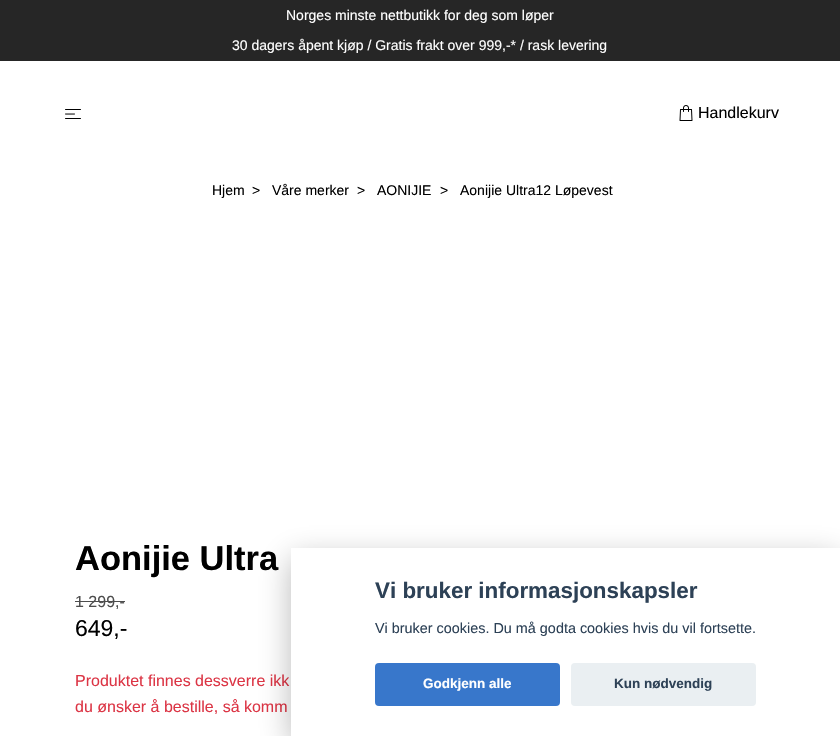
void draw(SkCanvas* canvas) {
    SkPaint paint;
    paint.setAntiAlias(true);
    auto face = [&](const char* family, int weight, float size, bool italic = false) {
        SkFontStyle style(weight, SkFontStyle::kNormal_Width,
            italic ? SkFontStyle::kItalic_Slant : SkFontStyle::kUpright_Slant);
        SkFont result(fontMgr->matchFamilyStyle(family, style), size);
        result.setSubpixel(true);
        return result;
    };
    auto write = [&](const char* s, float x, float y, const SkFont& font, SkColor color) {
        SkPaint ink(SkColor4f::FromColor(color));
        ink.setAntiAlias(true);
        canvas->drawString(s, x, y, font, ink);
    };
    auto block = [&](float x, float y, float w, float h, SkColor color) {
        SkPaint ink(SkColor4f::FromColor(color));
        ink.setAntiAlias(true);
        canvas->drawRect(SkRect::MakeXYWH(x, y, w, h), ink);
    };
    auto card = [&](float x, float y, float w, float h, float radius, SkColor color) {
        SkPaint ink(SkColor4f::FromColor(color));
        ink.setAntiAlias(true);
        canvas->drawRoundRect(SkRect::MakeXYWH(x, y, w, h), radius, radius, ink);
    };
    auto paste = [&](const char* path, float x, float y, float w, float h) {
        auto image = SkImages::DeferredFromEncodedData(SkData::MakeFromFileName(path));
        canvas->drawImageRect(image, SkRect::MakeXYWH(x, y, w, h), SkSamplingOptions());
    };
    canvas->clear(SK_ColorWHITE);
    block(0, 0, 840, 61, SkColorSetRGB(38, 38, 38));
    auto kFont1 = face("Liberation Sans", 400, 14);
    write("Norges minste nettbutikk for deg som løper", 286, 20, kFont1, SK_ColorWHITE);
    write("30 dagers åpent kjøp / Gratis frakt over 999,-* / rask levering", 232, 50, kFont1, SK_ColorWHITE);
    paste("pic1.png", 65, 109, 16, 10);
    paste("pic2.png", 679, 105, 14, 16);
    auto kFont2 = face("Liberation Sans", 400, 16);
    write("Handlekurv", 698, 118, kFont2, SK_ColorBLACK);
    write("Hjem", 212, 195, kFont1, SK_ColorBLACK);
    write(">", 252, 195, kFont1, SK_ColorBLACK);
    write("Våre merker", 272, 195, kFont1, SK_ColorBLACK);
    write(">", 357, 195, kFont1, SK_ColorBLACK);
    write("AONIJIE", 377, 195, kFont1, SK_ColorBLACK);
    write(">", 440, 195, kFont1, SK_ColorBLACK);
    write("Aonijie Ultra12 Løpevest", 460, 195, kFont1, SK_ColorBLACK);
    auto kFont3 = face("Liberation Sans", 700, 34.5f);
    write("Aonijie Ultra", 75, 570, kFont3, SK_ColorBLACK);
    write("1 299,-", 75, 607, kFont2, SkColorSetRGB(77, 77, 77));
    block(75, 601, 50, 1, SkColorSetRGB(77, 77, 77));
    auto kFont4 = face("Liberation Sans", 400, 23);
    write("649,-", 75, 636, kFont4, SK_ColorBLACK);
    write("Produktet finnes dessverre ikk", 75, 686, kFont2, SkColorSetRGB(220, 53, 69));
    write("du ønsker å bestille, så komm", 75, 712, kFont2, SkColorSetRGB(220, 53, 69));
    paint.setColor(SkColorSetARGB(71, 2, 2, 3));
    paint.setMaskFilter(SkMaskFilter::MakeBlur(kNormal_SkBlurStyle, 15));
    canvas->drawRect(SkRect::MakeXYWH(291, 558, 549, 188), paint);
    paint.setMaskFilter(nullptr);
    block(291, 548, 549, 188, SK_ColorWHITE);
    auto kFont5 = face("Liberation Sans", 700, 22.4f);
    write("Vi bruker informasjonskapsler", 375, 598, kFont5, SkColorSetRGB(45, 65, 86));
    auto kFont6 = face("Liberation Sans", 400, 14.4f);
    write("Vi bruker cookies. Du må godta cookies hvis du vil fortsette.", 375, 633, kFont6, SkColorSetRGB(45, 65, 86));
    card(375, 663, 185, 43, 4, SkColorSetRGB(56, 119, 203));
    auto kFont7 = face("Liberation Sans", 700, 13.5f);
    write("Godkjenn alle", 423, 688, kFont7, SK_ColorWHITE);
    card(571, 663, 185, 43, 4, SkColorSetRGB(234, 239, 242));
    write("Kun nødvendig", 614, 688, kFont7, SkColorSetRGB(45, 65, 86));
}
